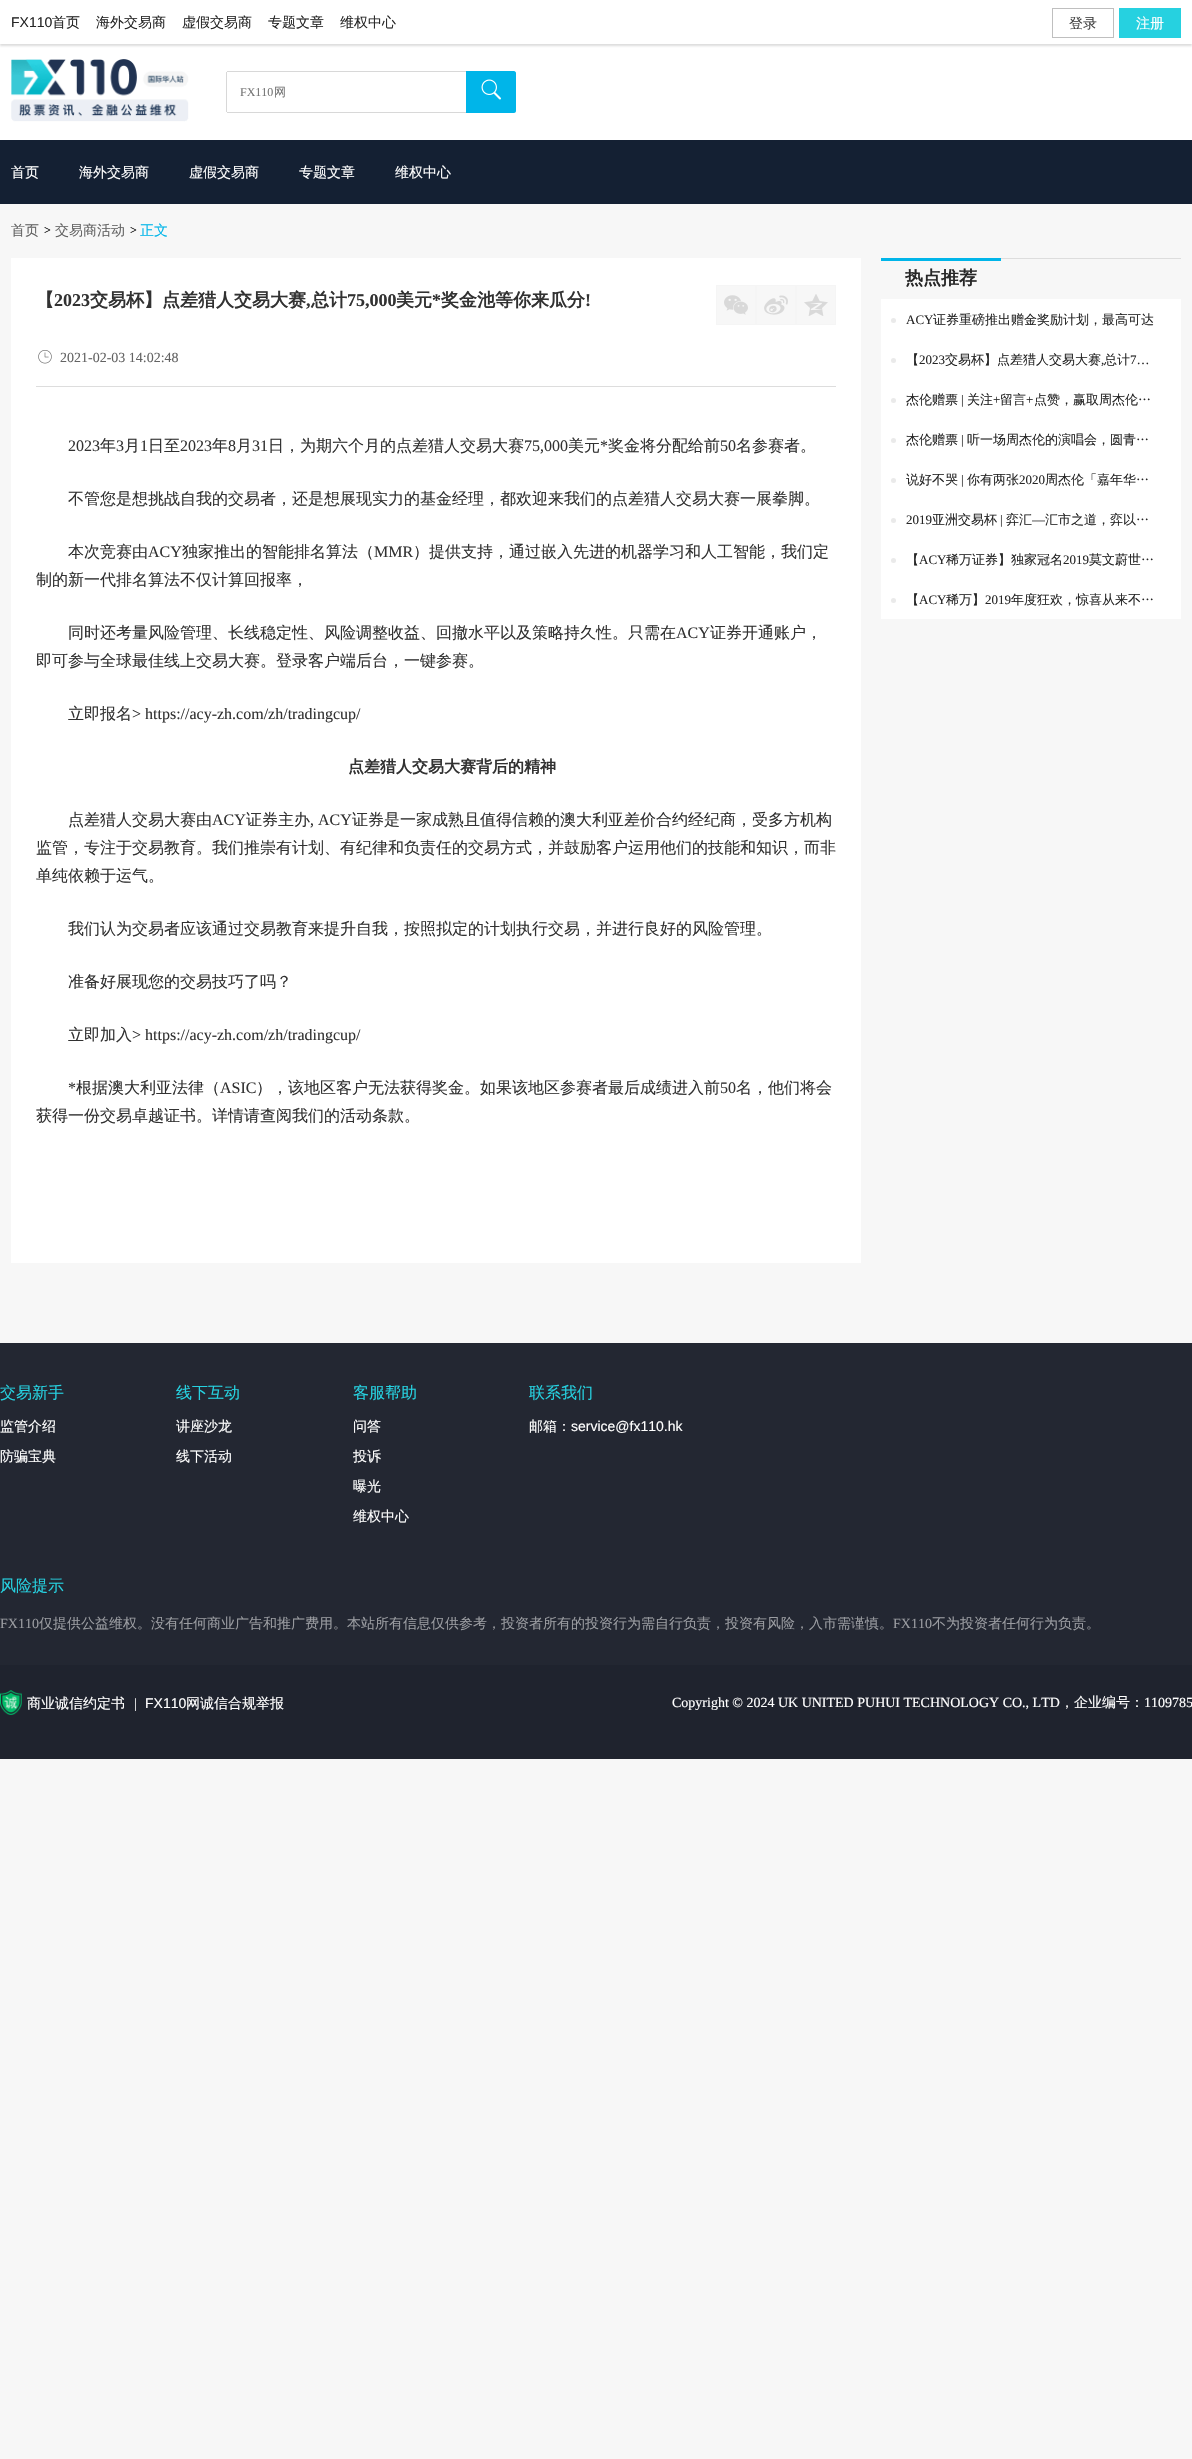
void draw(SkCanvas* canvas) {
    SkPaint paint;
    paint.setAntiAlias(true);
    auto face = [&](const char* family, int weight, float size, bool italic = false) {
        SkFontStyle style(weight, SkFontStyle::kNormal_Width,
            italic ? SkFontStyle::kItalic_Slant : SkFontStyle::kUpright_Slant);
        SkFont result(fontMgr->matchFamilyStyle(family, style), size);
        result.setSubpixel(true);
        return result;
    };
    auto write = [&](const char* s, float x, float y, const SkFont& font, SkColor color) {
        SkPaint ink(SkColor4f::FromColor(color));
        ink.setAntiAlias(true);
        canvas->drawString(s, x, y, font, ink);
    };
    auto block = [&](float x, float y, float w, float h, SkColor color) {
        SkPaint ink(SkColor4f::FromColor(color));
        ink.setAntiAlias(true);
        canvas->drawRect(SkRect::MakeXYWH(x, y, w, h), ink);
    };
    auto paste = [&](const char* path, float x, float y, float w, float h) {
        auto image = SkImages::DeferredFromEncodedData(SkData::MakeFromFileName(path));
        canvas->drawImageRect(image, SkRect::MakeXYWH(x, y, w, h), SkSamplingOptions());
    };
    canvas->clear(SkColorSetRGB(247, 247, 247));
    block(0, 0, 1192, 140, SK_ColorWHITE);
    canvas->save();
    canvas->clipRect(SkRect::MakeXYWH(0, 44, 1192, 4));
    paint.setColor(SkColorSetRGB(221, 221, 221));
    paint.setMaskFilter(SkMaskFilter::MakeBlur(kNormal_SkBlurStyle, 1));
    canvas->drawRect(SkRect::MakeXYWH(0, 2, 1192, 44), paint);
    paint.setMaskFilter(nullptr);
    canvas->restore();
    auto kFont1 = face("Liberation Sans", 400, 14);
    write("FX110", 11, 27, kFont1, SkColorSetRGB(38, 38, 38));
    auto kFont2 = face("WenQuanYi Zen Hei", 500, 14);
    write("首页", 52, 27, kFont2, SkColorSetRGB(38, 38, 38));
    write("海外交易商", 96, 27, kFont2, SkColorSetRGB(38, 38, 38));
    write("虚假交易商", 182, 27, kFont2, SkColorSetRGB(38, 38, 38));
    write("专题文章", 268, 27, kFont2, SkColorSetRGB(38, 38, 38));
    write("维权中心", 340, 27, kFont2, SkColorSetRGB(38, 38, 38));
    paint.setStyle(SkPaint::kStroke_Style);
    paint.setStrokeWidth(1);
    paint.setColor(SkColorSetRGB(191, 191, 191));
    canvas->drawRect(SkRect::MakeXYWH(1052.5f, 8.5f, 61, 29), paint);
    write("登录", 1069, 28, kFont2, SkColorSetRGB(64, 64, 64));
    block(1119, 8, 62, 30, SkColorSetRGB(38, 209, 224));
    write("注册", 1136, 28, kFont2, SK_ColorWHITE);
    paste("pic1.png", 11, 59, 178, 63);
    block(227, 71, 239, 1, SkColorSetRGB(216, 216, 216));
    block(227, 112, 239, 1, SkColorSetRGB(216, 216, 216));
    block(226, 72, 1, 40, SkColorSetRGB(216, 216, 216));
    auto kFont3 = face("Liberation Serif", 400, 12);
    write("FX110", 240, 96, kFont3, SkColorSetRGB(117, 117, 117));
    auto kFont4 = face("WenQuanYi Zen Hei", 500, 12);
    write("网", 274, 96, kFont4, SkColorSetRGB(117, 117, 117));
    paint.setStyle(SkPaint::kFill_Style);
    paint.setColor(SkColorSetRGB(0, 181, 233));
    canvas->drawPath(SkPathBuilder().moveTo(466, 71).lineTo(514, 71).cubicTo(515, 71, 516, 72, 516, 73).lineTo(516, 111).cubicTo(516, 112, 515, 113, 514, 113).lineTo(466, 113).close().detach(), paint);
    paste("pic2.png", 481, 79, 20, 21);
    block(0, 140, 1192, 64, SkColorSetRGB(20, 32, 51));
    write("首页", 11, 177, kFont2, SK_ColorWHITE);
    write("海外交易商", 79, 177, kFont2, SK_ColorWHITE);
    write("虚假交易商", 189, 177, kFont2, SK_ColorWHITE);
    write("专题文章", 299, 177, kFont2, SK_ColorWHITE);
    write("维权中心", 395, 177, kFont2, SK_ColorWHITE);
    write("首页", 11, 235, kFont2, SkColorSetRGB(99, 99, 99));
    write(">", 44, 234, kFont3, SK_ColorBLACK);
    write("交易商活动", 55, 235, kFont2, SkColorSetRGB(99, 99, 99));
    write(">", 130, 234, kFont3, SK_ColorBLACK);
    write("正文", 140, 235, kFont2, SkColorSetRGB(0, 181, 233));
    block(11, 258, 850, 1005, SK_ColorWHITE);
    auto kFont5 = face("WenQuanYi Zen Hei", 700, 18);
    write("【", 36, 306, kFont5, SkColorSetRGB(50, 50, 50));
    auto kFont6 = face("Liberation Serif", 700, 18);
    write("2023", 54, 306, kFont6, SkColorSetRGB(50, 50, 50));
    write("交易杯】点差猎人交易大赛", 90, 306, kFont5, SkColorSetRGB(50, 50, 50));
    write(",", 306, 306, kFont6, SkColorSetRGB(50, 50, 50));
    write("总计", 311, 306, kFont5, SkColorSetRGB(50, 50, 50));
    write("75,000", 347, 306, kFont6, SkColorSetRGB(50, 50, 50));
    write("美元", 396, 306, kFont5, SkColorSetRGB(50, 50, 50));
    write("*", 432, 306, kFont6, SkColorSetRGB(50, 50, 50));
    write("奖金池等你来瓜分", 441, 306, kFont5, SkColorSetRGB(50, 50, 50));
    write("!", 585, 306, kFont6, SkColorSetRGB(50, 50, 50));
    paint.setColor(SkColorSetRGB(247, 247, 247));
    canvas->drawRect(SkRect::MakeXYWH(716.5f, 285.5f, 39, 39), paint);
    paint.setStyle(SkPaint::kStroke_Style);
    paint.setColor(SkColorSetRGB(245, 245, 245));
    canvas->drawRect(SkRect::MakeXYWH(716.5f, 285.5f, 39, 39), paint);
    paste("pic3.png", 724, 295, 24, 20);
    paint.setStyle(SkPaint::kFill_Style);
    paint.setColor(SkColorSetRGB(247, 247, 247));
    canvas->drawRect(SkRect::MakeXYWH(756.5f, 285.5f, 39, 39), paint);
    paint.setStyle(SkPaint::kStroke_Style);
    paint.setColor(SkColorSetRGB(245, 245, 245));
    canvas->drawRect(SkRect::MakeXYWH(756.5f, 285.5f, 39, 39), paint);
    paste("pic4.png", 764, 295, 24, 20);
    paint.setStyle(SkPaint::kFill_Style);
    paint.setColor(SkColorSetRGB(247, 247, 247));
    canvas->drawRect(SkRect::MakeXYWH(796.5f, 285.5f, 39, 39), paint);
    paint.setStyle(SkPaint::kStroke_Style);
    paint.setColor(SkColorSetRGB(245, 245, 245));
    canvas->drawRect(SkRect::MakeXYWH(796.5f, 285.5f, 39, 39), paint);
    paste("pic5.png", 804, 294, 24, 22);
    paste("pic6.png", 38, 350, 14, 14);
    auto kFont7 = face("Liberation Serif", 400, 14);
    write("2021-02-03 14:02:48", 60, 362, kFont7, SkColorSetRGB(99, 99, 99));
    block(36, 386, 800, 1, SkColorSetRGB(221, 221, 221));
    auto kFont8 = face("Liberation Serif", 400, 16);
    write("2023", 68, 451, kFont8, SkColorSetRGB(50, 50, 50));
    auto kFont9 = face("WenQuanYi Zen Hei", 500, 16);
    write("年", 100, 451, kFont9, SkColorSetRGB(50, 50, 50));
    write("3", 116, 451, kFont8, SkColorSetRGB(50, 50, 50));
    write("月", 124, 451, kFont9, SkColorSetRGB(50, 50, 50));
    write("1", 140, 451, kFont8, SkColorSetRGB(50, 50, 50));
    write("日至", 148, 451, kFont9, SkColorSetRGB(50, 50, 50));
    write("2023", 180, 451, kFont8, SkColorSetRGB(50, 50, 50));
    write("年", 212, 451, kFont9, SkColorSetRGB(50, 50, 50));
    write("8", 228, 451, kFont8, SkColorSetRGB(50, 50, 50));
    write("月", 236, 451, kFont9, SkColorSetRGB(50, 50, 50));
    write("31", 252, 451, kFont8, SkColorSetRGB(50, 50, 50));
    write("日，为期六个月的点差猎人交易大赛", 268, 451, kFont9, SkColorSetRGB(50, 50, 50));
    write("75,000", 524, 451, kFont8, SkColorSetRGB(50, 50, 50));
    write("美元", 568, 451, kFont9, SkColorSetRGB(50, 50, 50));
    write("*", 600, 451, kFont8, SkColorSetRGB(50, 50, 50));
    write("奖金将分配给前", 608, 451, kFont9, SkColorSetRGB(50, 50, 50));
    write("50", 720, 451, kFont8, SkColorSetRGB(50, 50, 50));
    write("名参赛者。", 736, 451, kFont9, SkColorSetRGB(50, 50, 50));
    write("不管您是想挑战自我的交易者，还是想展现实力的基金经理，都欢迎来我们的点差猎人交易大赛一展拳脚。", 68, 504, kFont9, SkColorSetRGB(50, 50, 50));
    write("本次竞赛由", 68, 557, kFont9, SkColorSetRGB(50, 50, 50));
    write("ACY", 148, 557, kFont8, SkColorSetRGB(50, 50, 50));
    write("独家推出的智能排名算法（", 182, 557, kFont9, SkColorSetRGB(50, 50, 50));
    write("MMR", 374, 557, kFont8, SkColorSetRGB(50, 50, 50));
    write("）提供支持，通过嵌入先进的机器学习和人工智能，我们定", 413, 557, kFont9, SkColorSetRGB(50, 50, 50));
    write("制的新一代排名算法不仅计算回报率，", 36, 585, kFont9, SkColorSetRGB(50, 50, 50));
    write("同时还考量风险管理、长线稳定性、风险调整收益、回撤水平以及策略持久性。只需在", 68, 638, kFont9, SkColorSetRGB(50, 50, 50));
    write("ACY", 676, 638, kFont8, SkColorSetRGB(50, 50, 50));
    write("证券开通账户，", 710, 638, kFont9, SkColorSetRGB(50, 50, 50));
    write("即可参与全球最佳线上交易大赛。登录客户端后台，一键参赛。", 36, 666, kFont9, SkColorSetRGB(50, 50, 50));
    write("立即报名", 68, 719, kFont9, SkColorSetRGB(50, 50, 50));
    write("> https://acy-zh.com/zh/tradingcup/", 132, 719, kFont8, SkColorSetRGB(50, 50, 50));
    auto kFont10 = face("WenQuanYi Zen Hei", 700, 16);
    write("点差猎人交易大赛背后的精神", 348, 772, kFont10, SkColorSetRGB(50, 50, 50));
    write("点差猎人交易大赛由", 68, 825, kFont9, SkColorSetRGB(50, 50, 50));
    write("ACY", 212, 825, kFont8, SkColorSetRGB(50, 50, 50));
    write("证券主办", 246, 825, kFont9, SkColorSetRGB(50, 50, 50));
    write(", ACY", 310, 825, kFont8, SkColorSetRGB(50, 50, 50));
    write("证券是一家成熟且值得信赖的澳大利亚差价合约经纪商，受多方机构", 352, 825, kFont9, SkColorSetRGB(50, 50, 50));
    write("监管，专注于交易教育。我们推崇有计划、有纪律和负责任的交易方式，并鼓励客户运用他们的技能和知识，而非", 36, 853, kFont9, SkColorSetRGB(50, 50, 50));
    write("单纯依赖于运气。", 36, 881, kFont9, SkColorSetRGB(50, 50, 50));
    write("我们认为交易者应该通过交易教育来提升自我，按照拟定的计划执行交易，并进行良好的风险管理。", 68, 934, kFont9, SkColorSetRGB(50, 50, 50));
    write("准备好展现您的交易技巧了吗？", 68, 987, kFont9, SkColorSetRGB(50, 50, 50));
    write("立即加入", 68, 1040, kFont9, SkColorSetRGB(50, 50, 50));
    write("> https://acy-zh.com/zh/tradingcup/", 132, 1040, kFont8, SkColorSetRGB(50, 50, 50));
    write("*", 68, 1093, kFont8, SkColorSetRGB(50, 50, 50));
    write("根据澳大利亚法律（", 76, 1093, kFont9, SkColorSetRGB(50, 50, 50));
    write("ASIC", 220, 1093, kFont8, SkColorSetRGB(50, 50, 50));
    write("），该地区客户无法获得奖金。如果该地区参赛者最后成绩进入前", 256, 1093, kFont9, SkColorSetRGB(50, 50, 50));
    write("50", 720, 1093, kFont8, SkColorSetRGB(50, 50, 50));
    write("名，他们将会", 736, 1093, kFont9, SkColorSetRGB(50, 50, 50));
    write("获得一份交易卓越证书。详情请查阅我们的活动条款。", 36, 1121, kFont9, SkColorSetRGB(50, 50, 50));
    block(1001, 258, 180, 1, SkColorSetRGB(221, 221, 221));
    block(881, 258, 120, 3, SkColorSetRGB(0, 181, 233));
    write("热点推荐", 905, 284, kFont5, SkColorSetRGB(38, 38, 38));
    block(881, 299, 300, 320, SK_ColorWHITE);
    paint.setStyle(SkPaint::kFill_Style);
    paint.setColor(SkColorSetRGB(234, 234, 234));
    canvas->drawCircle(893.5f, 320.5f, 2.5f, paint);
    auto kFont11 = face("Liberation Serif", 400, 13);
    write("ACY", 906, 324, kFont11, SkColorSetRGB(38, 38, 38));
    auto kFont12 = face("WenQuanYi Zen Hei", 500, 13);
    write("证券重磅推出赠金奖励计划，最高可达", 933, 324, kFont12, SkColorSetRGB(38, 38, 38));
    canvas->drawCircle(893.5f, 360.5f, 2.5f, paint);
    write("【", 906, 364, kFont12, SkColorSetRGB(38, 38, 38));
    write("2023", 919, 364, kFont11, SkColorSetRGB(38, 38, 38));
    write("交易杯】点差猎人交易大赛", 945, 364, kFont12, SkColorSetRGB(38, 38, 38));
    write(",", 1101, 364, kFont11, SkColorSetRGB(38, 38, 38));
    write("总计", 1104, 364, kFont12, SkColorSetRGB(38, 38, 38));
    write("7…", 1130, 364, kFont11, SkColorSetRGB(38, 38, 38));
    canvas->drawCircle(893.5f, 400.5f, 2.5f, paint);
    write("杰伦赠票", 906, 404, kFont12, SkColorSetRGB(38, 38, 38));
    write("|", 961, 404, kFont11, SkColorSetRGB(38, 38, 38));
    write("关注", 967, 404, kFont12, SkColorSetRGB(38, 38, 38));
    write("+", 993, 404, kFont11, SkColorSetRGB(38, 38, 38));
    write("留言", 1000, 404, kFont12, SkColorSetRGB(38, 38, 38));
    write("+", 1026, 404, kFont11, SkColorSetRGB(38, 38, 38));
    write("点赞，赢取周杰伦…", 1034, 404, kFont12, SkColorSetRGB(38, 38, 38));
    canvas->drawCircle(893.5f, 440.5f, 2.5f, paint);
    write("杰伦赠票", 906, 444, kFont12, SkColorSetRGB(38, 38, 38));
    write("|", 961, 444, kFont11, SkColorSetRGB(38, 38, 38));
    write("听一场周杰伦的演唱会，圆青…", 967, 444, kFont12, SkColorSetRGB(38, 38, 38));
    canvas->drawCircle(893.5f, 480.5f, 2.5f, paint);
    write("说好不哭", 906, 484, kFont12, SkColorSetRGB(38, 38, 38));
    write("|", 961, 484, kFont11, SkColorSetRGB(38, 38, 38));
    write("你有两张", 967, 484, kFont12, SkColorSetRGB(38, 38, 38));
    write("2020", 1019, 484, kFont11, SkColorSetRGB(38, 38, 38));
    write("周杰伦「嘉年华…", 1045, 484, kFont12, SkColorSetRGB(38, 38, 38));
    canvas->drawCircle(893.5f, 520.5f, 2.5f, paint);
    write("2019", 906, 524, kFont11, SkColorSetRGB(38, 38, 38));
    write("亚洲交易杯", 932, 524, kFont12, SkColorSetRGB(38, 38, 38));
    write("|", 1000, 524, kFont11, SkColorSetRGB(38, 38, 38));
    write("弈汇", 1006, 524, kFont12, SkColorSetRGB(38, 38, 38));
    write("—", 1032, 524, kFont11, SkColorSetRGB(38, 38, 38));
    write("汇市之道，弈以…", 1045, 524, kFont12, SkColorSetRGB(38, 38, 38));
    canvas->drawCircle(893.5f, 560.5f, 2.5f, paint);
    write("【", 906, 564, kFont12, SkColorSetRGB(38, 38, 38));
    write("ACY", 919, 564, kFont11, SkColorSetRGB(38, 38, 38));
    write("稀万证券】独家冠名", 946, 564, kFont12, SkColorSetRGB(38, 38, 38));
    write("2019", 1063, 564, kFont11, SkColorSetRGB(38, 38, 38));
    write("莫文蔚世…", 1089, 564, kFont12, SkColorSetRGB(38, 38, 38));
    canvas->drawCircle(893.5f, 600.5f, 2.5f, paint);
    write("【", 906, 604, kFont12, SkColorSetRGB(38, 38, 38));
    write("ACY", 919, 604, kFont11, SkColorSetRGB(38, 38, 38));
    write("稀万】", 946, 604, kFont12, SkColorSetRGB(38, 38, 38));
    write("2019", 985, 604, kFont11, SkColorSetRGB(38, 38, 38));
    write("年度狂欢，惊喜从来不…", 1011, 604, kFont12, SkColorSetRGB(38, 38, 38));
    block(0, 1343, 1192, 322, SkColorSetRGB(35, 39, 50));
    write("交易新手", 0, 1398, kFont9, SkColorSetRGB(38, 209, 224));
    write("监管介绍", 0, 1431, kFont2, SK_ColorWHITE);
    write("防骗宝典", 0, 1461, kFont2, SK_ColorWHITE);
    write("线下互动", 176, 1398, kFont9, SkColorSetRGB(38, 209, 224));
    write("讲座沙龙", 176, 1431, kFont2, SK_ColorWHITE);
    write("线下活动", 176, 1461, kFont2, SK_ColorWHITE);
    write("客服帮助", 353, 1398, kFont9, SkColorSetRGB(38, 209, 224));
    write("问答", 353, 1431, kFont2, SK_ColorWHITE);
    write("投诉", 353, 1461, kFont2, SK_ColorWHITE);
    write("曝光", 353, 1491, kFont2, SK_ColorWHITE);
    write("维权中心", 353, 1521, kFont2, SK_ColorWHITE);
    write("联系我们", 529, 1398, kFont9, SkColorSetRGB(38, 209, 224));
    write("邮箱：", 529, 1431, kFont2, SK_ColorWHITE);
    write("service@fx110.hk", 571, 1431, kFont1, SK_ColorWHITE);
    write("风险提示", 0, 1591, kFont9, SkColorSetRGB(38, 209, 224));
    write("FX110", 0, 1628, kFont7, SkColorSetRGB(154, 156, 161));
    write("仅提供公益维权。没有任何商业广告和推广费用。本站所有信息仅供参考，投资者所有的投资行为需自行负责，投资有风险，入市需谨慎。", 39, 1628, kFont2, SkColorSetRGB(154, 156, 161));
    write("FX110", 893, 1628, kFont7, SkColorSetRGB(154, 156, 161));
    write("不为投资者任何行为负责。", 932, 1628, kFont2, SkColorSetRGB(154, 156, 161));
    block(0, 1665, 1192, 94, SkColorSetRGB(31, 35, 46));
    paste("pic7.png", 0, 1690, 22, 25);
    write("商业诚信约定书", 27, 1708, kFont2, SK_ColorWHITE);
    write("|", 134, 1708, kFont7, SK_ColorWHITE);
    write("FX110", 145, 1708, kFont1, SK_ColorWHITE);
    write("网诚信合规举报", 186, 1708, kFont2, SK_ColorWHITE);
    write("Copyright © 2024 UK UNITED PUHUI TECHNOLOGY CO., LTD", 672, 1707, kFont7, SK_ColorWHITE);
    write("，企业编号：", 1060, 1707, kFont2, SK_ColorWHITE);
    write("1109785", 1144, 1707, kFont7, SK_ColorWHITE);
}
